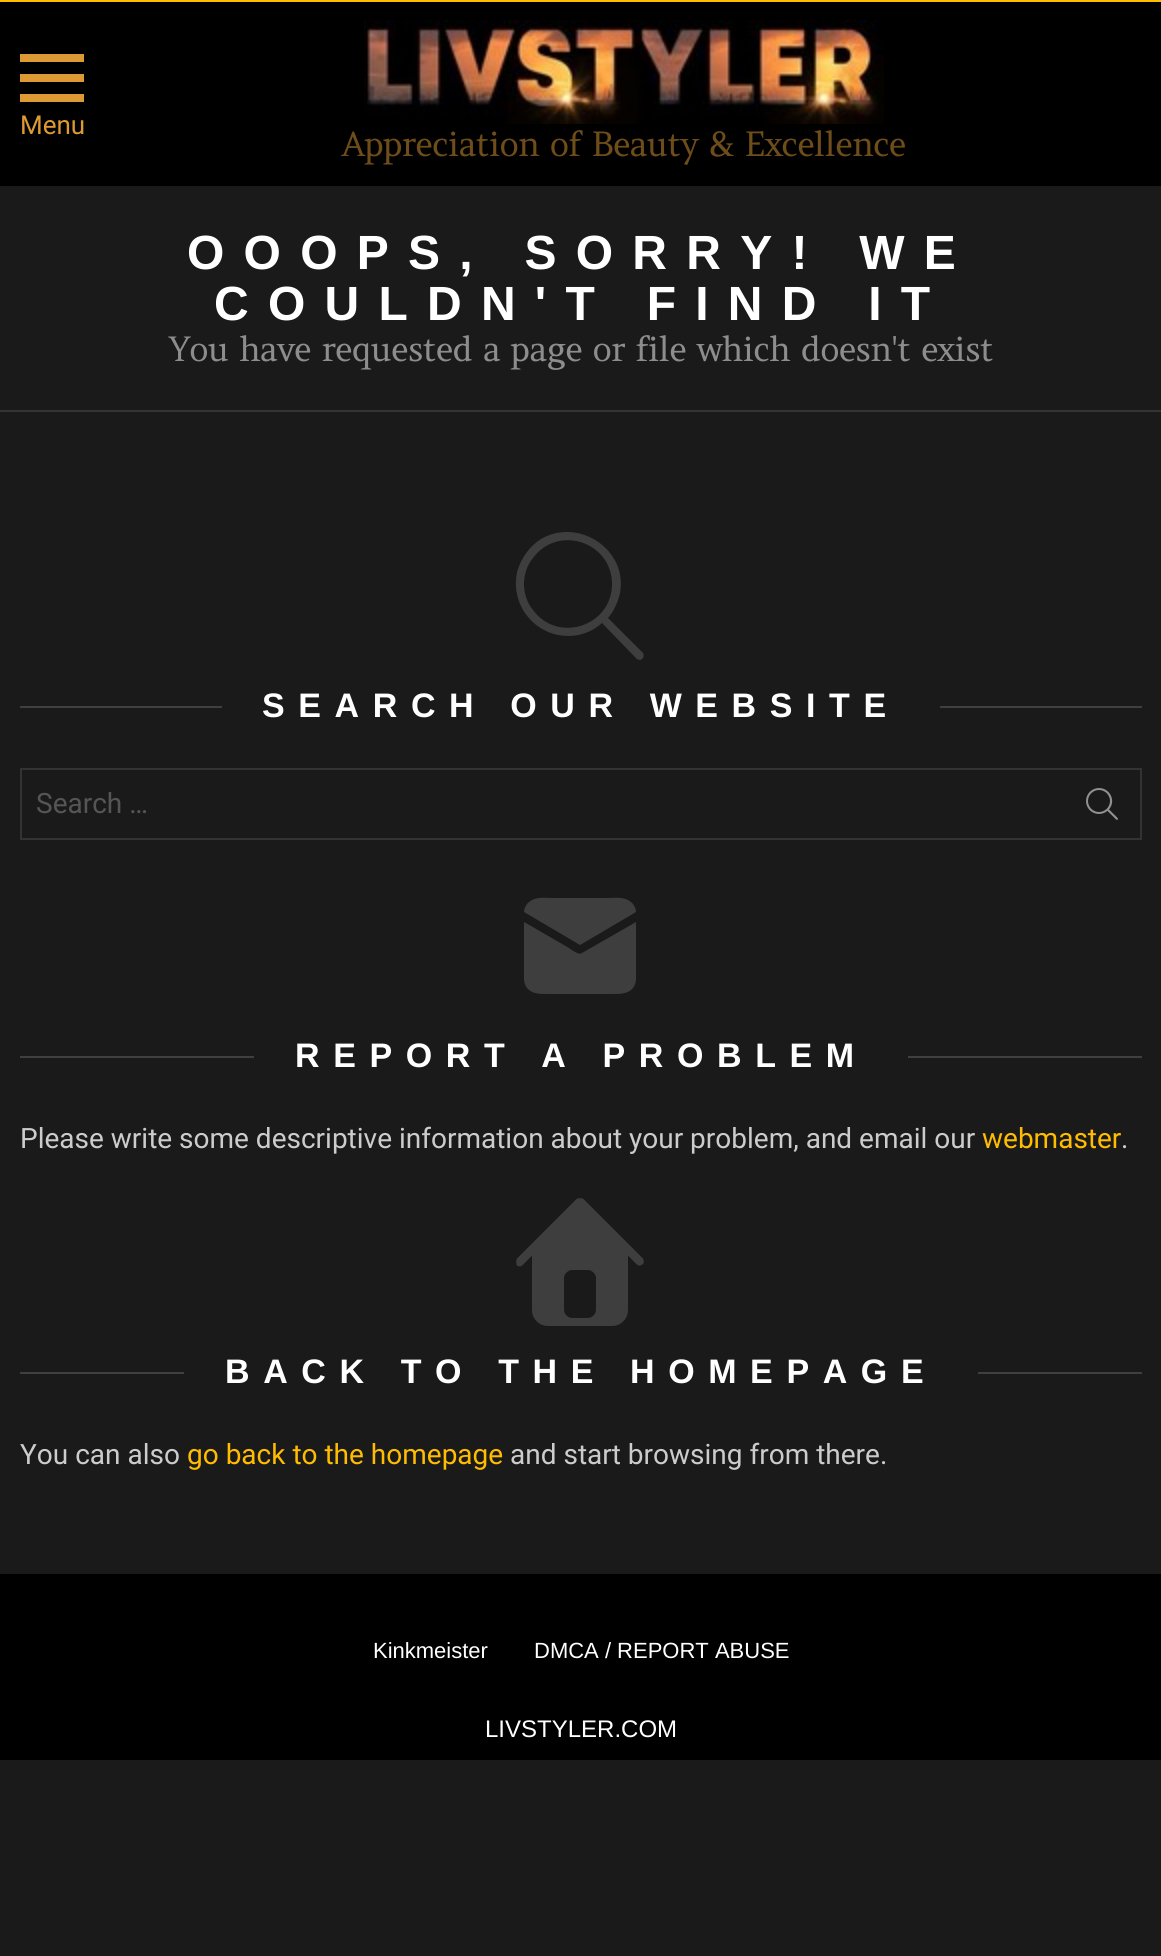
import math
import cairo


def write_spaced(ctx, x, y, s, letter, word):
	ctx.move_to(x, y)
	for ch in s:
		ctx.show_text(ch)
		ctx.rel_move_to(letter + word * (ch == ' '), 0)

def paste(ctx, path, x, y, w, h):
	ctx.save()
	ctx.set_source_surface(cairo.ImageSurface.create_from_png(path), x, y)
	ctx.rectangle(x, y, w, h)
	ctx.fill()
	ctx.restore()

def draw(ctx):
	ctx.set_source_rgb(0.102, 0.102, 0.102)
	ctx.paint()
	ctx.set_source_rgb(0, 0, 0)
	ctx.rectangle(0, 2, 1161, 1758)
	ctx.fill()
	ctx.set_source_rgb(1, 0.737, 0.004)
	ctx.rectangle(0, 0, 1161, 2)
	ctx.fill()
	ctx.set_source_rgb(0.867, 0.6, 0.2)
	ctx.new_path()
	ctx.move_to(20, 54)
	ctx.line_to(84, 54)
	ctx.line_to(84, 62)
	ctx.line_to(20, 62)
	ctx.close_path()
	ctx.move_to(20, 74)
	ctx.line_to(84, 74)
	ctx.line_to(84, 82)
	ctx.line_to(20, 82)
	ctx.close_path()
	ctx.move_to(20, 94)
	ctx.line_to(84, 94)
	ctx.line_to(84, 102)
	ctx.line_to(20, 102)
	ctx.close_path()
	ctx.fill()
	ctx.select_font_face('Roboto')
	ctx.set_font_size(26)
	ctx.move_to(20, 134)
	ctx.show_text('Menu')
	paste(ctx, 'media/1.png', 364, 20, 520, 104)
	ctx.select_font_face('Amethysta')
	ctx.set_font_size(34)
	ctx.set_source_rgb(0.435, 0.302, 0.102)
	write_spaced(ctx, 341, 156, 'Appreciation of Beauty & Excellence', -0.85, 0)
	ctx.set_source_rgb(0.102, 0.102, 0.102)
	ctx.rectangle(0, 186, 1161, 224)
	ctx.fill()
	ctx.set_source_rgb(0.2, 0.2, 0.2)
	ctx.rectangle(0, 410, 1161, 2)
	ctx.fill()
	ctx.select_font_face('Liberation Sans', cairo.FONT_SLANT_NORMAL, cairo.FONT_WEIGHT_BOLD)
	ctx.set_font_size(48)
	ctx.set_source_rgb(1, 1, 1)
	write_spaced(ctx, 187, 269, 'OOOPS, SORRY! WE', 19.25, 0)
	write_spaced(ctx, 214, 320, 'COULDN\'T FIND IT', 19.25, 0)
	ctx.select_font_face('Amethysta')
	ctx.set_font_size(34)
	ctx.set_source_rgb(0.553, 0.553, 0.553)
	write_spaced(ctx, 169, 361, 'You have requested a page or file which doesn\'t exist', -0.85, 0)
	ctx.set_source_rgb(0.102, 0.102, 0.102)
	ctx.rectangle(0, 412, 1161, 1162)
	ctx.fill()
	ctx.set_source_rgb(0.243, 0.243, 0.243)
	ctx.new_path()
	ctx.move_to(643, 653)
	ctx.line_to(608, 618)
	ctx.curve_to(614, 611, 618, 602, 620, 593)
	ctx.curve_to(628, 550, 579, 517, 541, 539)
	ctx.curve_to(530, 546, 522, 557, 518, 569)
	ctx.curve_to(513, 585, 517, 604, 528, 617)
	ctx.curve_to(546, 639, 580, 643, 602, 623)
	ctx.line_to(631, 653)
	ctx.curve_to(633, 654, 636, 660, 640, 660)
	ctx.curve_to(644, 659, 644, 655, 643, 653)
	ctx.close_path()
	ctx.move_to(524, 584)
	ctx.curve_to(524, 575, 527, 565, 533, 558)
	ctx.curve_to(558, 524, 612, 542, 612, 584)
	ctx.curve_to(612, 626, 558, 644, 533, 610)
	ctx.curve_to(527, 603, 524, 593, 524, 584)
	ctx.close_path()
	ctx.fill()
	ctx.set_source_rgb(0.251, 0.251, 0.251)
	ctx.rectangle(20, 706, 202, 2)
	ctx.fill()
	ctx.select_font_face('Liberation Sans', cairo.FONT_SLANT_NORMAL, cairo.FONT_WEIGHT_BOLD)
	ctx.set_source_rgb(1, 1, 1)
	write_spaced(ctx, 262, 717, 'SEARCH OUR WEBSITE', 13.6, 0)
	ctx.set_source_rgb(0.251, 0.251, 0.251)
	ctx.rectangle(940, 706, 202, 2)
	ctx.fill()
	ctx.rectangle(21, 769, 1120, 70)
	ctx.set_source_rgb(0.2, 0.2, 0.2)
	ctx.stroke()
	ctx.select_font_face('Roboto')
	ctx.set_font_size(28)
	ctx.set_source_rgb(0.333, 0.333, 0.333)
	ctx.move_to(36, 813)
	ctx.show_text('Search …')
	paste(ctx, 'media/2.png', 1086, 788, 32, 32)
	ctx.set_source_rgb(0.243, 0.243, 0.243)
	ctx.new_path()
	ctx.move_to(580, 945)
	ctx.line_to(636, 912)
	ctx.curve_to(636, 909, 635, 907, 633, 904)
	ctx.curve_to(626, 896, 616, 898, 607, 898)
	ctx.line_to(553, 898)
	ctx.curve_to(544, 898, 534, 896, 527, 904)
	ctx.curve_to(525, 907, 524, 909, 524, 912)
	ctx.close_path()
	ctx.move_to(582, 953)
	ctx.curve_to(579, 956, 569, 948, 569, 948)
	ctx.line_to(524, 922)
	ctx.line_to(524, 980)
	ctx.curve_to(526, 996, 542, 994, 553, 994)
	ctx.line_to(607, 994)
	ctx.curve_to(618, 994, 634, 996, 636, 980)
	ctx.line_to(636, 922)
	ctx.close_path()
	ctx.fill()
	ctx.set_source_rgb(0.251, 0.251, 0.251)
	ctx.rectangle(20, 1056, 234, 2)
	ctx.fill()
	ctx.select_font_face('Liberation Sans', cairo.FONT_SLANT_NORMAL, cairo.FONT_WEIGHT_BOLD)
	ctx.set_font_size(34)
	ctx.set_source_rgb(1, 1, 1)
	write_spaced(ctx, 295, 1067, 'REPORT A PROBLEM', 13.6, 0)
	ctx.set_source_rgb(0.251, 0.251, 0.251)
	ctx.rectangle(908, 1056, 234, 2)
	ctx.fill()
	ctx.select_font_face('Roboto')
	ctx.set_font_size(28)
	ctx.set_source_rgb(0.8, 0.8, 0.8)
	ctx.move_to(20, 1148)
	ctx.show_text('Please write some descriptive information about your problem, and email our')
	ctx.set_source_rgb(1, 0.737, 0.004)
	ctx.move_to(982, 1148)
	ctx.show_text('webmaster')
	ctx.set_source_rgb(0.8, 0.8, 0.8)
	ctx.move_to(1121, 1148)
	ctx.show_text('.')
	paste(ctx, 'media/3.png', 516, 1198, 128, 128)
	ctx.set_source_rgb(0.251, 0.251, 0.251)
	ctx.rectangle(20, 1372, 164, 2)
	ctx.fill()
	ctx.select_font_face('Liberation Sans', cairo.FONT_SLANT_NORMAL, cairo.FONT_WEIGHT_BOLD)
	ctx.set_font_size(34)
	ctx.set_source_rgb(1, 1, 1)
	write_spaced(ctx, 225, 1383, 'BACK TO THE HOMEPAGE', 13.6, 0)
	ctx.set_source_rgb(0.251, 0.251, 0.251)
	ctx.rectangle(978, 1372, 164, 2)
	ctx.fill()
	ctx.select_font_face('Roboto')
	ctx.set_font_size(28)
	ctx.set_source_rgb(0.8, 0.8, 0.8)
	ctx.move_to(20, 1464)
	ctx.show_text('You can also')
	ctx.set_source_rgb(1, 0.737, 0.004)
	ctx.move_to(187, 1464)
	ctx.show_text('go back to the homepage')
	ctx.set_source_rgb(0.8, 0.8, 0.8)
	ctx.move_to(510, 1464)
	ctx.show_text('and start browsing from there.')
	ctx.select_font_face('Liberation Sans')
	ctx.set_font_size(22)
	ctx.set_source_rgb(1, 1, 1)
	ctx.move_to(373, 1658)
	ctx.show_text('Kinkmeister')
	ctx.move_to(534, 1658)
	ctx.show_text('DMCA / REPORT ABUSE')
	ctx.set_font_size(24)
	ctx.move_to(485, 1737)
	ctx.show_text('LIVSTYLER.COM')


surface = cairo.ImageSurface(cairo.FORMAT_RGB24, 1161, 1956)
ctx = cairo.Context(surface)
options = cairo.FontOptions()
options.set_hint_metrics(cairo.HINT_METRICS_OFF)
options.set_hint_style(cairo.HINT_STYLE_NONE)
ctx.set_font_options(options)
ctx.set_miter_limit(4)
draw(ctx)
surface.write_to_png('image.png')
